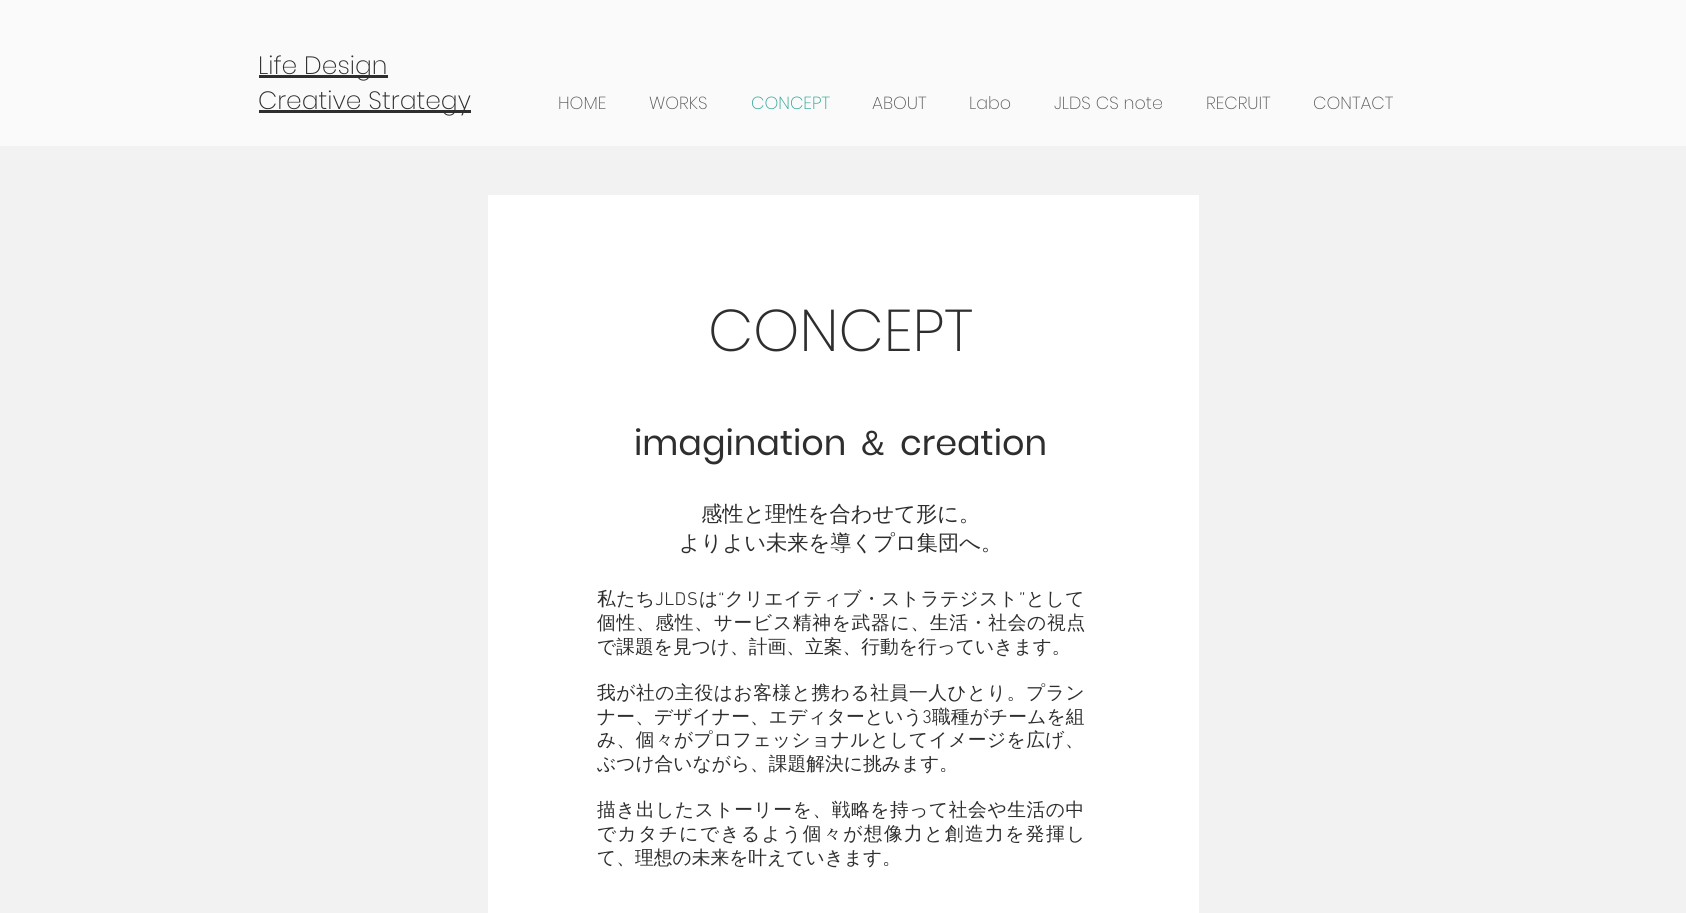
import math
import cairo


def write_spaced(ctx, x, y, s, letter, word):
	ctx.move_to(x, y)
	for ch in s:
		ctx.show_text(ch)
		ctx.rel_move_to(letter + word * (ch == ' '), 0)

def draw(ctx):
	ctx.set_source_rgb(0.98, 0.98, 0.98)
	ctx.paint()
	ctx.set_source_rgb(0.18, 0.18, 0.18)
	ctx.rectangle(259, 75, 129, 3)
	ctx.fill()
	ctx.select_font_face('Poppins ExtraLight')
	ctx.set_font_size(25)
	ctx.move_to(258, 74)
	ctx.show_text('Life Design')
	ctx.rectangle(259, 110, 212, 3)
	ctx.fill()
	ctx.move_to(258, 109)
	ctx.show_text('Creative Strategy')
	ctx.set_font_size(17.5)
	ctx.set_source_rgb(0.357, 0.357, 0.357)
	ctx.move_to(558, 109)
	ctx.show_text('HOME')
	ctx.move_to(649, 109)
	ctx.show_text('WORKS')
	ctx.set_source_rgb(0.188, 0.651, 0.588)
	ctx.move_to(751, 109)
	ctx.show_text('CONCEPT')
	ctx.set_source_rgb(0.357, 0.357, 0.357)
	for x, y, s in [
		(872, 109, 'ABOUT'),
		(969, 109, 'Labo'),
		(1054, 109, 'JLDS CS note'),
		(1206, 109, 'RECRUIT'),
		(1313, 109, 'CONTACT'),
	]:
		ctx.move_to(x, y)
		ctx.show_text(s)
	ctx.set_source_rgb(0.949, 0.949, 0.949)
	ctx.rectangle(0, 146, 1686, 767)
	ctx.fill()
	ctx.set_source_rgb(1, 1, 1)
	ctx.rectangle(488, 195, 711, 718)
	ctx.fill()
	ctx.set_font_size(58.75)
	ctx.set_source_rgb(0.18, 0.18, 0.18)
	ctx.move_to(708, 351)
	ctx.show_text('CONCEPT')
	ctx.select_font_face('Poppins')
	ctx.set_font_size(35)
	ctx.move_to(634, 455)
	ctx.show_text('imagination')
	ctx.select_font_face('WenQuanYi Zen Hei Medium')
	ctx.move_to(855, 455)
	ctx.show_text('＆')
	ctx.select_font_face('Poppins')
	ctx.move_to(900, 455)
	ctx.show_text('creation')
	ctx.select_font_face('WenQuanYi Zen Hei Medium')
	ctx.set_font_size(21.25)
	ctx.move_to(701, 521)
	ctx.show_text('感性と理性を合わせて形に。')
	ctx.move_to(679, 550)
	ctx.show_text('よりよい未来を導くプロ集団へ。')
	ctx.set_font_size(18.75)
	write_spaced(ctx, 597, 605, '私たち', 0.4, 0)
	ctx.select_font_face('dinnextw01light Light')
	write_spaced(ctx, 655, 605, 'JLDS', 0.4, 0)
	ctx.select_font_face('WenQuanYi Zen Hei Medium')
	write_spaced(ctx, 699, 605, 'は', 0.4, 0)
	ctx.select_font_face('dinnextw01light Light')
	write_spaced(ctx, 718, 605, '“', 0.4, 0)
	ctx.select_font_face('WenQuanYi Zen Hei Medium')
	write_spaced(ctx, 725, 605, 'クリエイティブ・ストラテジスト', 0.4, 0)
	ctx.select_font_face('dinnextw01light Light')
	write_spaced(ctx, 1019, 605, '”', 0.4, 0)
	ctx.select_font_face('WenQuanYi Zen Hei Medium')
	write_spaced(ctx, 1026, 605, 'として', 0.4, 0)
	write_spaced(ctx, 597, 629, '個性、感性、サービス精神を武器に、生活・社会の視点', 0.7, 0)
	ctx.move_to(597, 653)
	ctx.show_text('で課題を見つけ、計画、立案、行動を行っていきます。')
	write_spaced(ctx, 597, 699, '我が社の主役はお客様と携わる社員一人ひとり。プラン', 0.55, 0)
	write_spaced(ctx, 597, 723, 'ナー、デザイナー、エディターという', 0.1, 0)
	ctx.select_font_face('dinnextw01light Light')
	write_spaced(ctx, 922, 723, '3', 0.1, 0)
	ctx.select_font_face('WenQuanYi Zen Hei Medium')
	write_spaced(ctx, 932, 723, '職種がチームを組', 0.1, 0)
	write_spaced(ctx, 597, 746, 'み、個々がプロフェッショナルとしてイメージを広げ、', 0.4, 0)
	ctx.move_to(597, 770)
	ctx.show_text('ぶつけ合いながら、課題解決に挑みます。')
	write_spaced(ctx, 597, 816, '描き出したストーリーを、戦略を持って社会や生活の中', 0.55, 0)
	write_spaced(ctx, 597, 840, 'でカタチにできるよう個々が想像力と創造力を発揮し', 1.4, 0)
	ctx.move_to(597, 864)
	ctx.show_text('て、理想の未来を叶えていきます。')


surface = cairo.ImageSurface(cairo.FORMAT_RGB24, 1686, 913)
ctx = cairo.Context(surface)
options = cairo.FontOptions()
options.set_hint_metrics(cairo.HINT_METRICS_OFF)
options.set_hint_style(cairo.HINT_STYLE_NONE)
ctx.set_font_options(options)
ctx.set_miter_limit(4)
draw(ctx)
surface.write_to_png('image.png')
